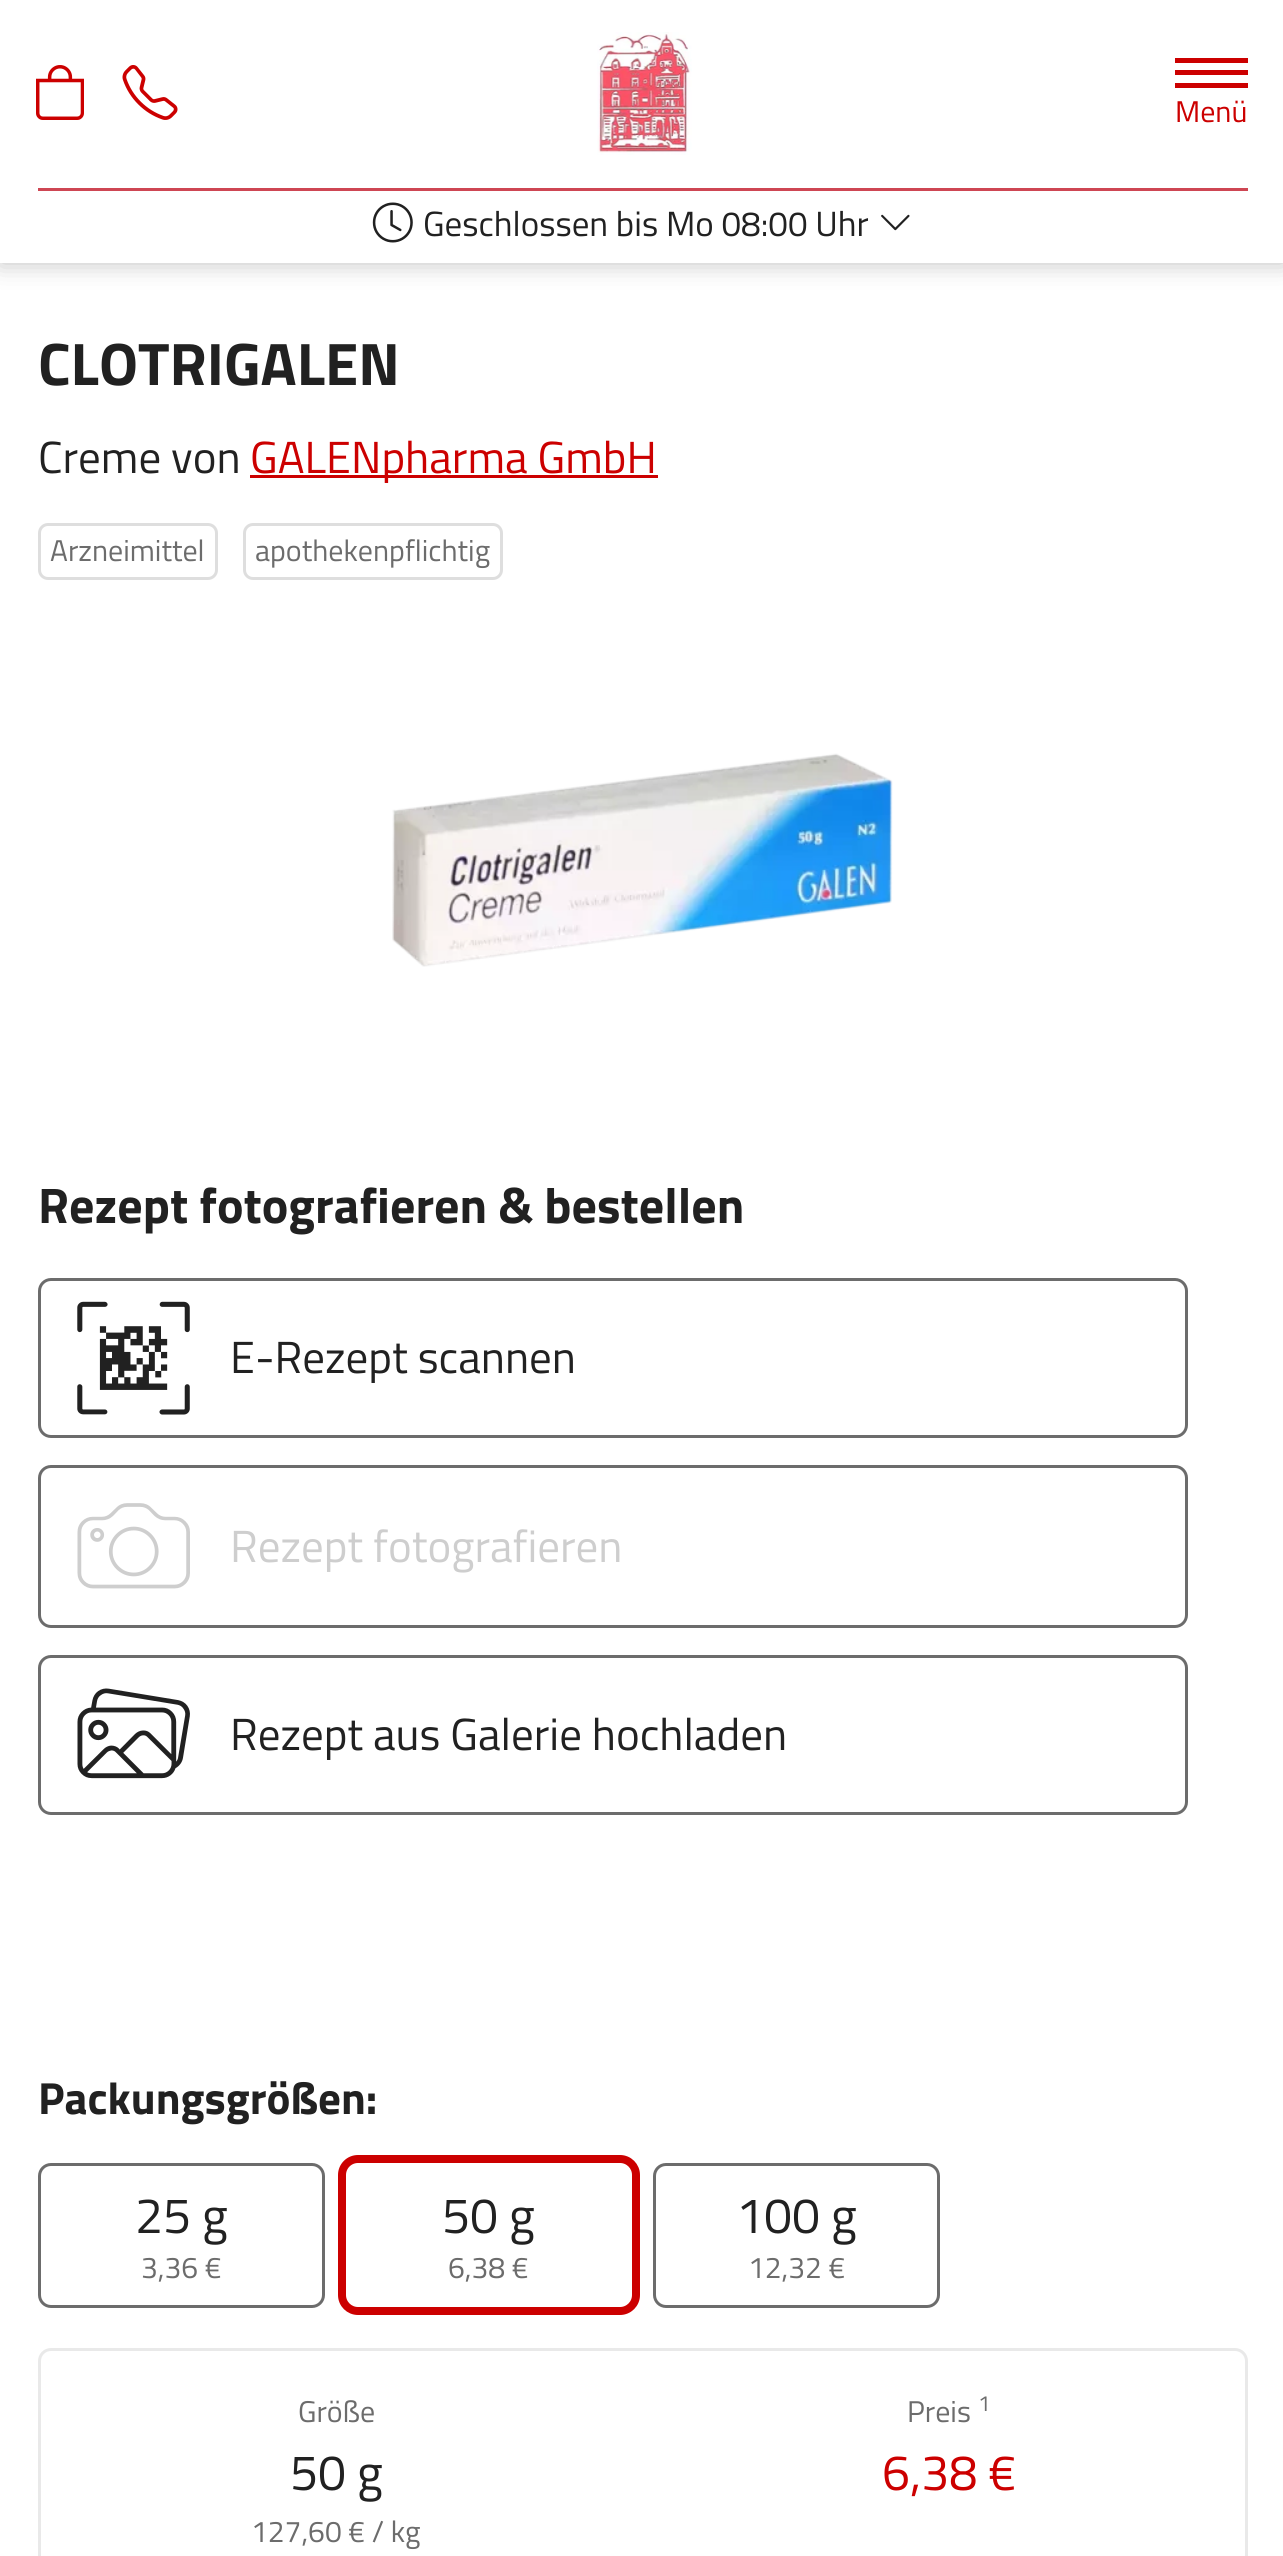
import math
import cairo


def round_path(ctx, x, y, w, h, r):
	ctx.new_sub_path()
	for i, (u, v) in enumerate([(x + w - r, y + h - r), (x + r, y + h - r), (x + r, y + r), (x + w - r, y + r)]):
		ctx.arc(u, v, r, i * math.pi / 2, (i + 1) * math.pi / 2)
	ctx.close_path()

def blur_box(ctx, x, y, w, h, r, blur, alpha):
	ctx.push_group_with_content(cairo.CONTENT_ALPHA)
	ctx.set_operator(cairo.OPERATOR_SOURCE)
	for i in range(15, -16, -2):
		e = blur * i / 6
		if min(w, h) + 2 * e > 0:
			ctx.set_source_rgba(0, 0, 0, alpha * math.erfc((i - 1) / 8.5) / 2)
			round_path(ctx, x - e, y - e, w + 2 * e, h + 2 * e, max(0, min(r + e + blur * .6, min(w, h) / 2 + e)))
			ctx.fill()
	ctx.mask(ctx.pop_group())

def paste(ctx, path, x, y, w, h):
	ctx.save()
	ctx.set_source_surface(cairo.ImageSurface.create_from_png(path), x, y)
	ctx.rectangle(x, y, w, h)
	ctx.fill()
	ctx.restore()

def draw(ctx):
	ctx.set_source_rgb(1, 1, 1)
	ctx.paint()
	ctx.set_source_rgb(0, 0, 0)
	blur_box(ctx, 0, 0, 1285, 263, 0, 12.5, 0.25)
	ctx.set_source_rgb(1, 1, 1)
	ctx.rectangle(0, 0, 1283, 263)
	ctx.fill()
	paste(ctx, 'media/1.png', 597, 32, 95, 123)
	ctx.set_source_rgb(0.808, 0.275, 0.325)
	ctx.rectangle(38, 188, 1210, 3)
	ctx.fill()
	paste(ctx, 'media/2.png', 36, 65, 48, 55)
	paste(ctx, 'media/3.png', 122, 65, 56, 55)
	ctx.set_source_rgb(0.8, 0, 0)
	ctx.rectangle(1175, 70, 73, 5)
	ctx.rectangle(1175, 58, 73, 5)
	ctx.rectangle(1175, 83, 73, 5)
	ctx.fill()
	ctx.select_font_face('Titillium Web')
	ctx.set_font_size(30)
	ctx.move_to(1175, 122)
	ctx.show_text('Menü')
	paste(ctx, 'media/4.png', 372, 202, 41, 41)
	ctx.set_font_size(35)
	ctx.set_source_rgb(0.129, 0.129, 0.129)
	ctx.move_to(423, 236)
	ctx.show_text('Geschlossen bis Mo 08:00 Uhr')
	paste(ctx, 'media/5.png', 881, 214, 29, 17)
	ctx.select_font_face('Titillium Web', cairo.FONT_SLANT_NORMAL, cairo.FONT_WEIGHT_BOLD)
	ctx.set_font_size(60)
	ctx.move_to(38, 385)
	ctx.show_text('CLOTRIGALEN')
	ctx.select_font_face('Titillium Web')
	ctx.set_font_size(45)
	ctx.move_to(38, 473)
	ctx.show_text('Creme von')
	ctx.set_source_rgb(0.8, 0, 0)
	ctx.rectangle(250, 475, 408, 3)
	ctx.fill()
	ctx.move_to(250, 473)
	ctx.show_text('GALENpharma GmbH')
	round_path(ctx, 39.5, 524.5, 177, 54, 8.5)
	ctx.set_source_rgb(0.871, 0.871, 0.871)
	ctx.set_line_width(3)
	ctx.stroke()
	ctx.set_font_size(30)
	ctx.set_source_rgb(0.424, 0.424, 0.424)
	ctx.move_to(50, 561)
	ctx.show_text('Arzneimittel')
	round_path(ctx, 244.5, 524.5, 257, 54, 8.5)
	ctx.set_source_rgb(0.871, 0.871, 0.871)
	ctx.stroke()
	ctx.set_source_rgb(0.424, 0.424, 0.424)
	ctx.move_to(255, 561)
	ctx.show_text('apothekenpflichtig')
	paste(ctx, 'media/6.png', 392, 753, 501, 214)
	ctx.select_font_face('Titillium Web', cairo.FONT_SLANT_NORMAL, cairo.FONT_WEIGHT_BOLD)
	ctx.set_font_size(50)
	ctx.set_source_rgb(0.129, 0.129, 0.129)
	ctx.move_to(38, 1223)
	ctx.show_text('Rezept fotografieren & bestellen')
	round_path(ctx, 39.5, 1279.5, 1147, 157, 11.5)
	ctx.set_source_rgb(0.424, 0.424, 0.424)
	ctx.stroke()
	paste(ctx, 'media/7.png', 77, 1301, 113, 114)
	ctx.select_font_face('Titillium Web')
	ctx.set_font_size(45)
	ctx.set_source_rgb(0.129, 0.129, 0.129)
	ctx.move_to(230, 1373)
	ctx.show_text('E-Rezept scannen')
	round_path(ctx, 39.5, 1466.5, 1147, 160, 11.5)
	ctx.set_source_rgb(0.424, 0.424, 0.424)
	ctx.stroke()
	paste(ctx, 'media/8.png', 77, 1503, 113, 86)
	ctx.set_source_rgb(0.808, 0.808, 0.808)
	ctx.move_to(230, 1562)
	ctx.show_text('Rezept fotografieren')
	round_path(ctx, 39.5, 1656.5, 1147, 157, 11.5)
	ctx.set_source_rgb(0.424, 0.424, 0.424)
	ctx.stroke()
	paste(ctx, 'media/9.png', 77, 1688, 113, 91)
	ctx.set_source_rgb(0.129, 0.129, 0.129)
	ctx.move_to(230, 1750)
	ctx.show_text('Rezept aus Galerie hochladen')
	ctx.select_font_face('Titillium Web', cairo.FONT_SLANT_NORMAL, cairo.FONT_WEIGHT_BOLD)
	ctx.move_to(38, 2114)
	ctx.show_text('Packungsgrößen:')
	round_path(ctx, 39.5, 2164.5, 284, 142, 11.5)
	ctx.set_source_rgb(0.424, 0.424, 0.424)
	ctx.stroke()
	ctx.select_font_face('Titillium Web')
	ctx.set_font_size(50)
	ctx.set_source_rgb(0.129, 0.129, 0.129)
	ctx.move_to(135, 2233)
	ctx.show_text('25 g')
	ctx.set_font_size(30)
	ctx.set_source_rgb(0.424, 0.424, 0.424)
	ctx.move_to(141, 2278)
	ctx.show_text('3,36 €')
	round_path(ctx, 342, 2159, 294, 152, 16)
	ctx.set_source_rgb(0.8, 0, 0)
	ctx.set_line_width(8)
	ctx.stroke()
	ctx.set_font_size(50)
	ctx.set_source_rgb(0.129, 0.129, 0.129)
	ctx.move_to(442, 2233)
	ctx.show_text('50 g')
	ctx.set_font_size(30)
	ctx.set_source_rgb(0.424, 0.424, 0.424)
	ctx.move_to(448, 2278)
	ctx.show_text('6,38 €')
	round_path(ctx, 654.5, 2164.5, 284, 142, 11.5)
	ctx.set_line_width(3)
	ctx.stroke()
	ctx.set_font_size(50)
	ctx.set_source_rgb(0.129, 0.129, 0.129)
	ctx.move_to(736, 2233)
	ctx.show_text('100 g')
	ctx.set_font_size(30)
	ctx.set_source_rgb(0.424, 0.424, 0.424)
	ctx.move_to(748, 2278)
	ctx.show_text('12,32 €')
	round_path(ctx, 39.5, 2349.5, 1207, 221, 11.5)
	ctx.set_source_rgb(0.914, 0.914, 0.914)
	ctx.stroke()
	ctx.set_source_rgb(0.424, 0.424, 0.424)
	ctx.move_to(298, 2422)
	ctx.show_text('Größe')
	ctx.set_font_size(50)
	ctx.set_source_rgb(0.129, 0.129, 0.129)
	ctx.move_to(290, 2490)
	ctx.show_text('50 g')
	ctx.set_font_size(30)
	ctx.set_source_rgb(0.424, 0.424, 0.424)
	ctx.move_to(251, 2542)
	ctx.show_text('127,60 € / kg')
	ctx.move_to(907, 2422)
	ctx.show_text('Preis')
	ctx.set_font_size(22)
	ctx.move_to(978, 2411)
	ctx.show_text('1')
	ctx.set_font_size(50)
	ctx.set_source_rgb(0.8, 0, 0)
	ctx.move_to(882, 2490)
	ctx.show_text('6,38 €')


surface = cairo.ImageSurface(cairo.FORMAT_RGB24, 1283, 2556)
ctx = cairo.Context(surface)
options = cairo.FontOptions()
options.set_hint_metrics(cairo.HINT_METRICS_OFF)
options.set_hint_style(cairo.HINT_STYLE_NONE)
ctx.set_font_options(options)
ctx.set_miter_limit(4)
draw(ctx)
surface.write_to_png('image.png')
